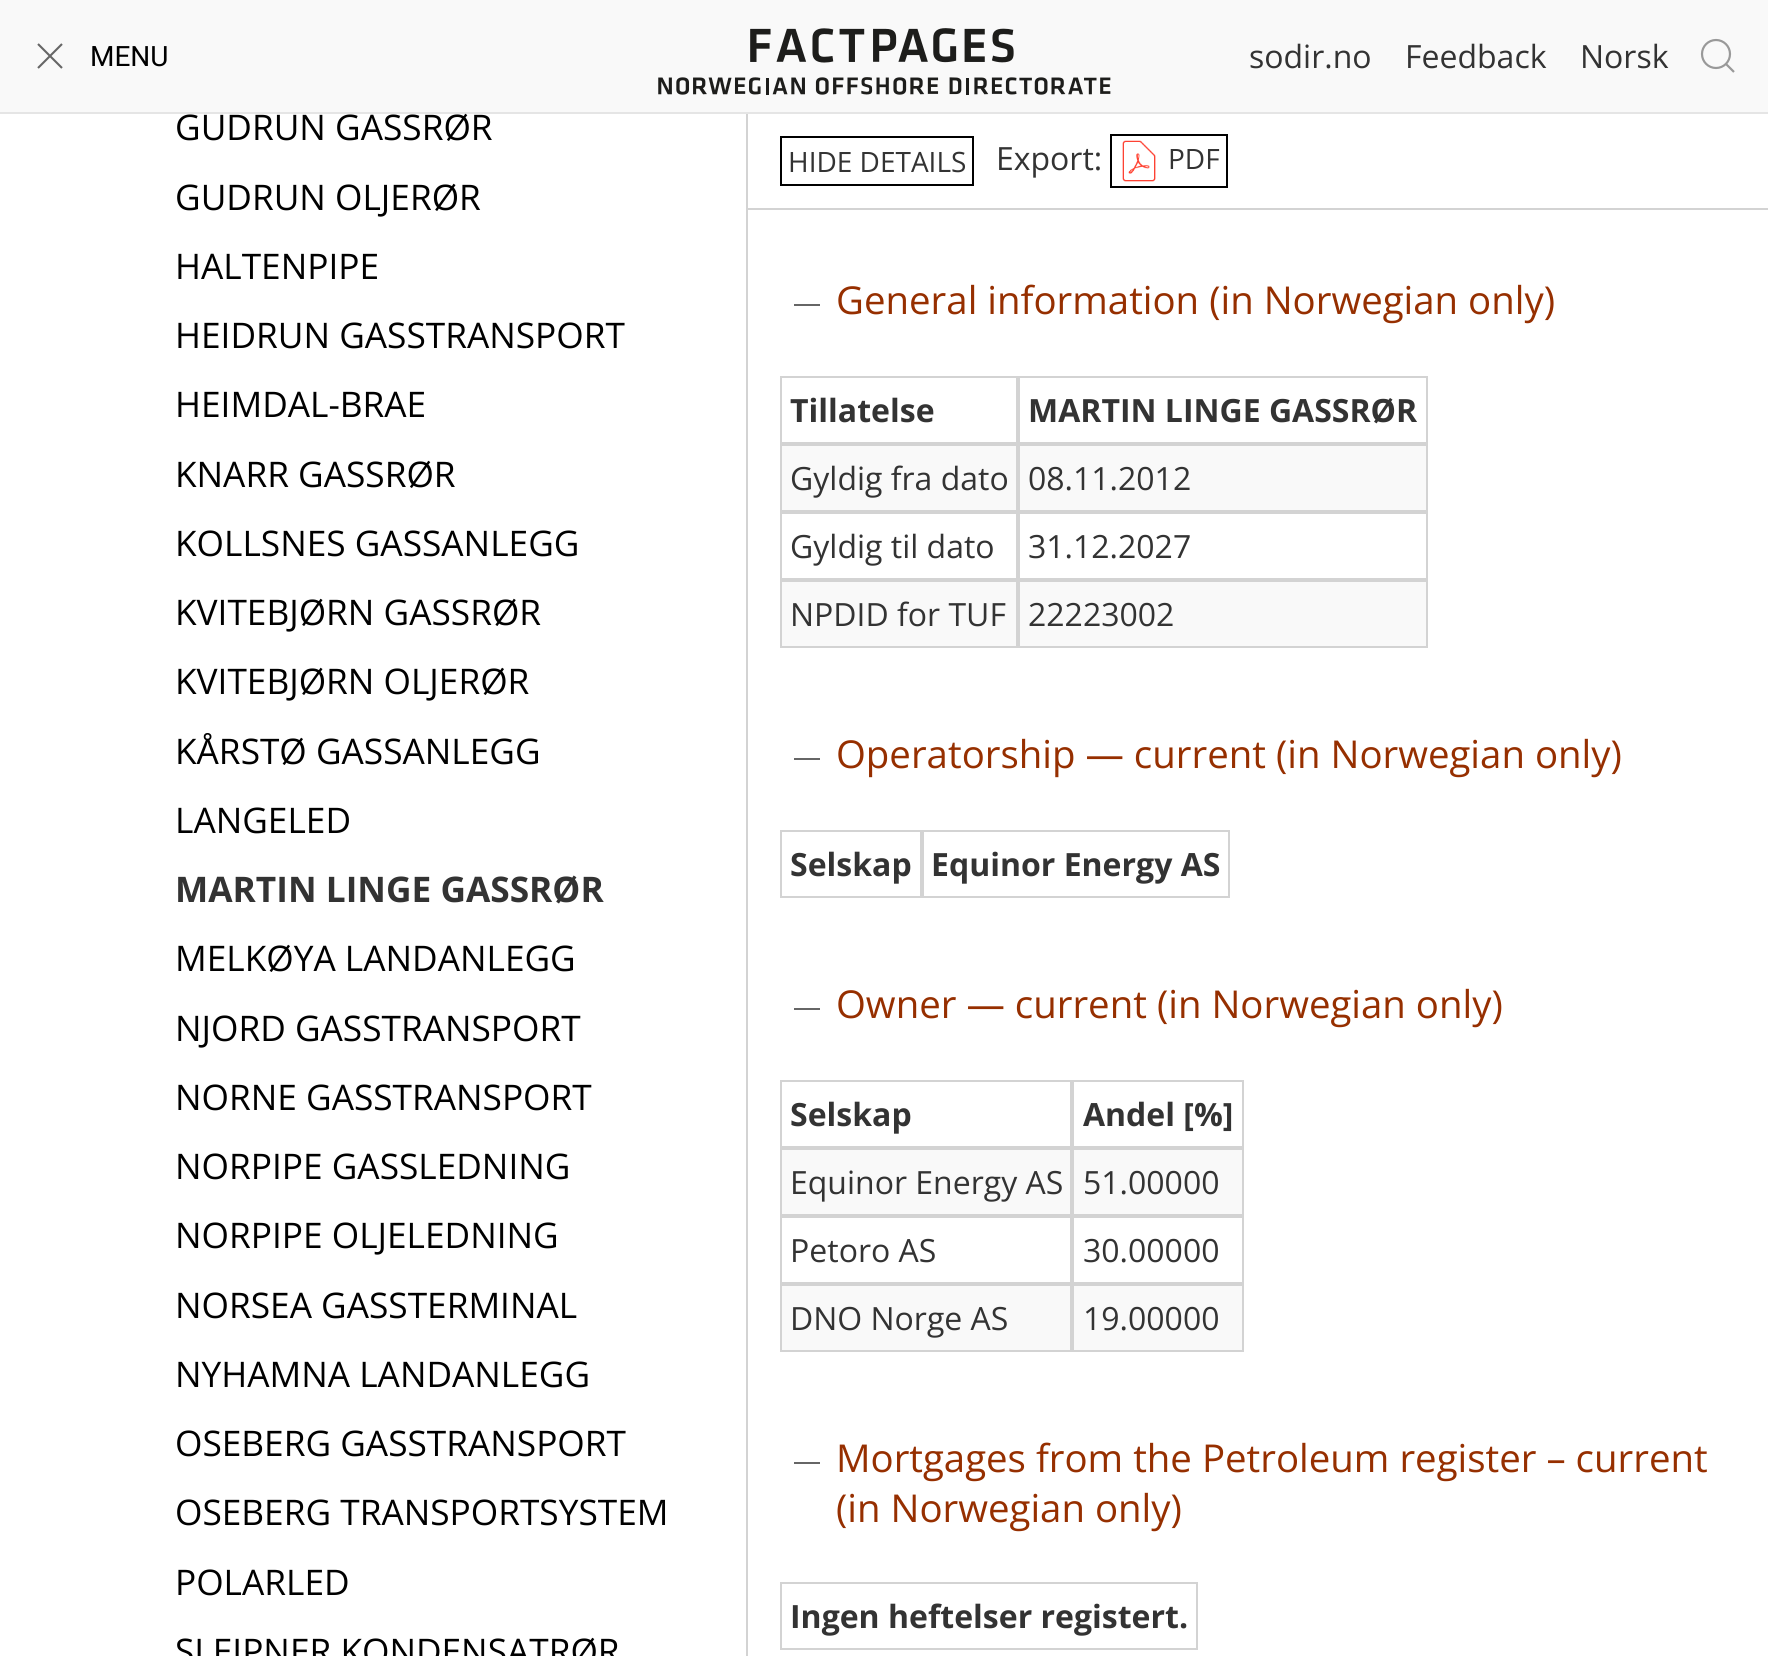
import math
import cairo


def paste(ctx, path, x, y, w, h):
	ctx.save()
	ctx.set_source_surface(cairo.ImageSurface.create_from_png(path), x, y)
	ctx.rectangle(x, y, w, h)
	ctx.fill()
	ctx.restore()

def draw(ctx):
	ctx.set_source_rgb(1, 1, 1)
	ctx.paint()
	ctx.set_source_rgb(0.898, 0.898, 0.898)
	ctx.rectangle(0, 112, 1768, 2)
	ctx.fill()
	ctx.set_source_rgb(0.973, 0.973, 0.973)
	ctx.rectangle(0, 0, 1768, 112)
	ctx.fill()
	ctx.new_path()
	ctx.move_to(62, 68)
	ctx.line_to(38, 44)
	ctx.move_to(62, 44)
	ctx.line_to(38, 68)
	ctx.set_source_rgb(0.4, 0.4, 0.4)
	ctx.set_line_width(2.1)
	ctx.stroke()
	ctx.select_font_face('Roboto')
	ctx.set_font_size(28)
	ctx.set_source_rgb(0, 0, 0)
	ctx.move_to(90, 66)
	ctx.show_text('MENU')
	paste(ctx, 'media/1.png', 658, 28, 453, 67)
	ctx.select_font_face('Open Sans')
	ctx.set_font_size(32)
	ctx.set_source_rgb(0.2, 0.2, 0.2)
	for x, y, s in [
		(1249, 68, 'sodir.no'),
		(1405, 68, 'Feedback'),
		(1580, 68, 'Norsk'),
	]:
		ctx.move_to(x, y)
		ctx.show_text(s)
	ctx.new_path()
	ctx.arc(1716, 54, 14, 0, 2 * math.pi)
	ctx.set_source_rgb(0.6, 0.6, 0.6)
	ctx.set_line_width(2.2)
	ctx.stroke()
	ctx.new_path()
	ctx.move_to(1726, 64)
	ctx.line_to(1734, 72)
	ctx.close_path()
	ctx.stroke()
	ctx.set_source_rgb(0.827, 0.827, 0.827)
	ctx.rectangle(746, 114, 2, 1542)
	ctx.fill()
	ctx.set_font_size(35.25)
	ctx.set_source_rgb(0, 0, 0)
	for x, y, s in [
		(175, 140, 'GUDRUN GASSRØR'),
		(175, 210, 'GUDRUN OLJERØR'),
		(175, 279, 'HALTENPIPE'),
		(175, 348, 'HEIDRUN GASSTRANSPORT'),
		(175, 417, 'HEIMDAL-BRAE'),
		(175, 487, 'KNARR GASSRØR'),
		(175, 556, 'KOLLSNES GASSANLEGG'),
		(175, 625, 'KVITEBJØRN GASSRØR'),
		(175, 694, 'KVITEBJØRN OLJERØR'),
		(175, 764, 'KÅRSTØ GASSANLEGG'),
		(175, 833, 'LANGELED'),
	]:
		ctx.move_to(x, y)
		ctx.show_text(s)
	ctx.select_font_face('Open Sans', cairo.FONT_SLANT_NORMAL, cairo.FONT_WEIGHT_BOLD)
	ctx.set_source_rgb(0.2, 0.2, 0.2)
	ctx.move_to(175, 902)
	ctx.show_text('MARTIN LINGE GASSRØR')
	ctx.select_font_face('Open Sans')
	ctx.set_source_rgb(0, 0, 0)
	for x, y, s in [
		(175, 971, 'MELKØYA LANDANLEGG'),
		(175, 1041, 'NJORD GASSTRANSPORT'),
		(175, 1110, 'NORNE GASSTRANSPORT'),
		(175, 1179, 'NORPIPE GASSLEDNING'),
		(175, 1248, 'NORPIPE OLJELEDNING'),
		(175, 1318, 'NORSEA GASSTERMINAL'),
		(175, 1387, 'NYHAMNA LANDANLEGG'),
		(175, 1456, 'OSEBERG GASSTRANSPORT'),
		(175, 1525, 'OSEBERG TRANSPORTSYSTEM'),
		(175, 1595, 'POLARLED'),
	]:
		ctx.move_to(x, y)
		ctx.show_text(s)
	ctx.save()
	ctx.rectangle(0, 114, 746, 1542)
	ctx.clip()
	ctx.move_to(175, 1664)
	ctx.show_text('SLEIPNER KONDENSATRØR')
	ctx.restore()
	ctx.set_source_rgb(0.827, 0.827, 0.827)
	ctx.rectangle(748, 208, 1020, 2)
	ctx.fill()
	ctx.rectangle(781, 137, 192, 48)
	ctx.set_source_rgb(0, 0, 0)
	ctx.set_line_width(2)
	ctx.stroke()
	ctx.set_font_size(28)
	ctx.set_source_rgb(0.2, 0.2, 0.2)
	ctx.move_to(788, 172)
	ctx.show_text('HIDE DETAILS')
	ctx.set_font_size(32)
	ctx.move_to(996, 170)
	ctx.show_text('Export:')
	ctx.rectangle(1111, 135, 116, 52)
	ctx.set_source_rgb(0, 0, 0)
	ctx.stroke()
	paste(ctx, 'media/2.png', 1122, 140, 34, 42)
	ctx.set_font_size(28)
	ctx.set_source_rgb(0.2, 0.2, 0.2)
	ctx.move_to(1168, 169)
	ctx.show_text('PDF')
	ctx.set_source_rgb(0.4, 0.4, 0.4)
	ctx.rectangle(794, 304, 26, 2)
	ctx.fill()
	ctx.set_font_size(38.4)
	ctx.set_source_rgb(0.588, 0.184, 0)
	ctx.move_to(836, 314)
	ctx.show_text('General information (in Norwegian only)')
	ctx.rectangle(781, 377, 236, 66)
	ctx.set_source_rgb(0.827, 0.827, 0.827)
	ctx.stroke()
	ctx.select_font_face('Open Sans', cairo.FONT_SLANT_NORMAL, cairo.FONT_WEIGHT_BOLD)
	ctx.set_font_size(32)
	ctx.set_source_rgb(0.2, 0.2, 0.2)
	ctx.move_to(790, 422)
	ctx.show_text('Tillatelse')
	ctx.rectangle(1019, 377, 408, 66)
	ctx.set_source_rgb(0.827, 0.827, 0.827)
	ctx.stroke()
	ctx.set_source_rgb(0.2, 0.2, 0.2)
	ctx.move_to(1028, 422)
	ctx.show_text('MARTIN LINGE GASSRØR')
	ctx.set_source_rgb(0.973, 0.973, 0.973)
	ctx.rectangle(782, 446, 644, 64)
	ctx.fill()
	ctx.rectangle(781, 445, 236, 66)
	ctx.set_source_rgb(0.827, 0.827, 0.827)
	ctx.stroke()
	ctx.select_font_face('Open Sans')
	ctx.set_source_rgb(0.2, 0.2, 0.2)
	ctx.move_to(790, 490)
	ctx.show_text('Gyldig fra dato')
	ctx.rectangle(1019, 445, 408, 66)
	ctx.set_source_rgb(0.827, 0.827, 0.827)
	ctx.stroke()
	ctx.set_source_rgb(0.2, 0.2, 0.2)
	ctx.move_to(1028, 490)
	ctx.show_text('08.11.2012')
	ctx.rectangle(781, 513, 236, 66)
	ctx.set_source_rgb(0.827, 0.827, 0.827)
	ctx.stroke()
	ctx.set_source_rgb(0.2, 0.2, 0.2)
	ctx.move_to(790, 558)
	ctx.show_text('Gyldig til dato')
	ctx.rectangle(1019, 513, 408, 66)
	ctx.set_source_rgb(0.827, 0.827, 0.827)
	ctx.stroke()
	ctx.set_source_rgb(0.2, 0.2, 0.2)
	ctx.move_to(1028, 558)
	ctx.show_text('31.12.2027')
	ctx.set_source_rgb(0.973, 0.973, 0.973)
	ctx.rectangle(782, 582, 644, 64)
	ctx.fill()
	ctx.rectangle(781, 581, 236, 66)
	ctx.set_source_rgb(0.827, 0.827, 0.827)
	ctx.stroke()
	ctx.set_source_rgb(0.2, 0.2, 0.2)
	ctx.move_to(790, 626)
	ctx.show_text('NPDID for TUF')
	ctx.rectangle(1019, 581, 408, 66)
	ctx.set_source_rgb(0.827, 0.827, 0.827)
	ctx.stroke()
	ctx.set_source_rgb(0.2, 0.2, 0.2)
	ctx.move_to(1028, 626)
	ctx.show_text('22223002')
	ctx.set_source_rgb(0.4, 0.4, 0.4)
	ctx.rectangle(794, 758, 26, 2)
	ctx.fill()
	ctx.set_font_size(38.4)
	ctx.set_source_rgb(0.588, 0.184, 0)
	ctx.move_to(836, 768)
	ctx.show_text('Operatorship — current (in Norwegian only)')
	ctx.rectangle(781, 831, 140, 66)
	ctx.set_source_rgb(0.827, 0.827, 0.827)
	ctx.stroke()
	ctx.select_font_face('Open Sans', cairo.FONT_SLANT_NORMAL, cairo.FONT_WEIGHT_BOLD)
	ctx.set_font_size(32)
	ctx.set_source_rgb(0.2, 0.2, 0.2)
	ctx.move_to(790, 876)
	ctx.show_text('Selskap')
	ctx.rectangle(923, 831, 306, 66)
	ctx.set_source_rgb(0.827, 0.827, 0.827)
	ctx.stroke()
	ctx.set_source_rgb(0.2, 0.2, 0.2)
	ctx.move_to(931, 876)
	ctx.show_text('Equinor Energy AS')
	ctx.set_source_rgb(0.4, 0.4, 0.4)
	ctx.rectangle(794, 1008, 26, 2)
	ctx.fill()
	ctx.select_font_face('Open Sans')
	ctx.set_font_size(38.4)
	ctx.set_source_rgb(0.588, 0.184, 0)
	ctx.move_to(836, 1018)
	ctx.show_text('Owner — current (in Norwegian only)')
	ctx.rectangle(781, 1081, 290, 66)
	ctx.set_source_rgb(0.827, 0.827, 0.827)
	ctx.stroke()
	ctx.select_font_face('Open Sans', cairo.FONT_SLANT_NORMAL, cairo.FONT_WEIGHT_BOLD)
	ctx.set_font_size(32)
	ctx.set_source_rgb(0.2, 0.2, 0.2)
	ctx.move_to(790, 1126)
	ctx.show_text('Selskap')
	ctx.rectangle(1073, 1081, 170, 66)
	ctx.set_source_rgb(0.827, 0.827, 0.827)
	ctx.stroke()
	ctx.set_source_rgb(0.2, 0.2, 0.2)
	ctx.move_to(1083, 1126)
	ctx.show_text('Andel [%]')
	ctx.set_source_rgb(0.973, 0.973, 0.973)
	ctx.rectangle(782, 1150, 460, 64)
	ctx.fill()
	ctx.rectangle(781, 1149, 290, 66)
	ctx.set_source_rgb(0.827, 0.827, 0.827)
	ctx.stroke()
	ctx.select_font_face('Open Sans')
	ctx.set_source_rgb(0.2, 0.2, 0.2)
	ctx.move_to(790, 1194)
	ctx.show_text('Equinor Energy AS')
	ctx.rectangle(1073, 1149, 170, 66)
	ctx.set_source_rgb(0.827, 0.827, 0.827)
	ctx.stroke()
	ctx.set_source_rgb(0.2, 0.2, 0.2)
	ctx.move_to(1083, 1194)
	ctx.show_text('51.00000')
	ctx.rectangle(781, 1217, 290, 66)
	ctx.set_source_rgb(0.827, 0.827, 0.827)
	ctx.stroke()
	ctx.set_source_rgb(0.2, 0.2, 0.2)
	ctx.move_to(790, 1262)
	ctx.show_text('Petoro AS')
	ctx.rectangle(1073, 1217, 170, 66)
	ctx.set_source_rgb(0.827, 0.827, 0.827)
	ctx.stroke()
	ctx.set_source_rgb(0.2, 0.2, 0.2)
	ctx.move_to(1083, 1262)
	ctx.show_text('30.00000')
	ctx.set_source_rgb(0.973, 0.973, 0.973)
	ctx.rectangle(782, 1286, 460, 64)
	ctx.fill()
	ctx.rectangle(781, 1285, 290, 66)
	ctx.set_source_rgb(0.827, 0.827, 0.827)
	ctx.stroke()
	ctx.set_source_rgb(0.2, 0.2, 0.2)
	ctx.move_to(790, 1330)
	ctx.show_text('DNO Norge AS')
	ctx.rectangle(1073, 1285, 170, 66)
	ctx.set_source_rgb(0.827, 0.827, 0.827)
	ctx.stroke()
	ctx.set_source_rgb(0.2, 0.2, 0.2)
	ctx.move_to(1083, 1330)
	ctx.show_text('19.00000')
	ctx.set_source_rgb(0.4, 0.4, 0.4)
	ctx.rectangle(794, 1462, 26, 2)
	ctx.fill()
	ctx.set_font_size(38.4)
	ctx.set_source_rgb(0.588, 0.184, 0)
	ctx.move_to(836, 1472)
	ctx.show_text('Mortgages from the Petroleum register – current')
	ctx.move_to(836, 1522)
	ctx.show_text('(in Norwegian only)')
	ctx.rectangle(781, 1583, 416, 66)
	ctx.set_source_rgb(0.827, 0.827, 0.827)
	ctx.stroke()
	ctx.select_font_face('Open Sans', cairo.FONT_SLANT_NORMAL, cairo.FONT_WEIGHT_BOLD)
	ctx.set_font_size(32)
	ctx.set_source_rgb(0.2, 0.2, 0.2)
	ctx.move_to(790, 1628)
	ctx.show_text('Ingen heftelser registert.')


surface = cairo.ImageSurface(cairo.FORMAT_RGB24, 1768, 1672)
ctx = cairo.Context(surface)
options = cairo.FontOptions()
options.set_hint_metrics(cairo.HINT_METRICS_OFF)
options.set_hint_style(cairo.HINT_STYLE_NONE)
ctx.set_font_options(options)
ctx.set_miter_limit(4)
draw(ctx)
surface.write_to_png('image.png')
